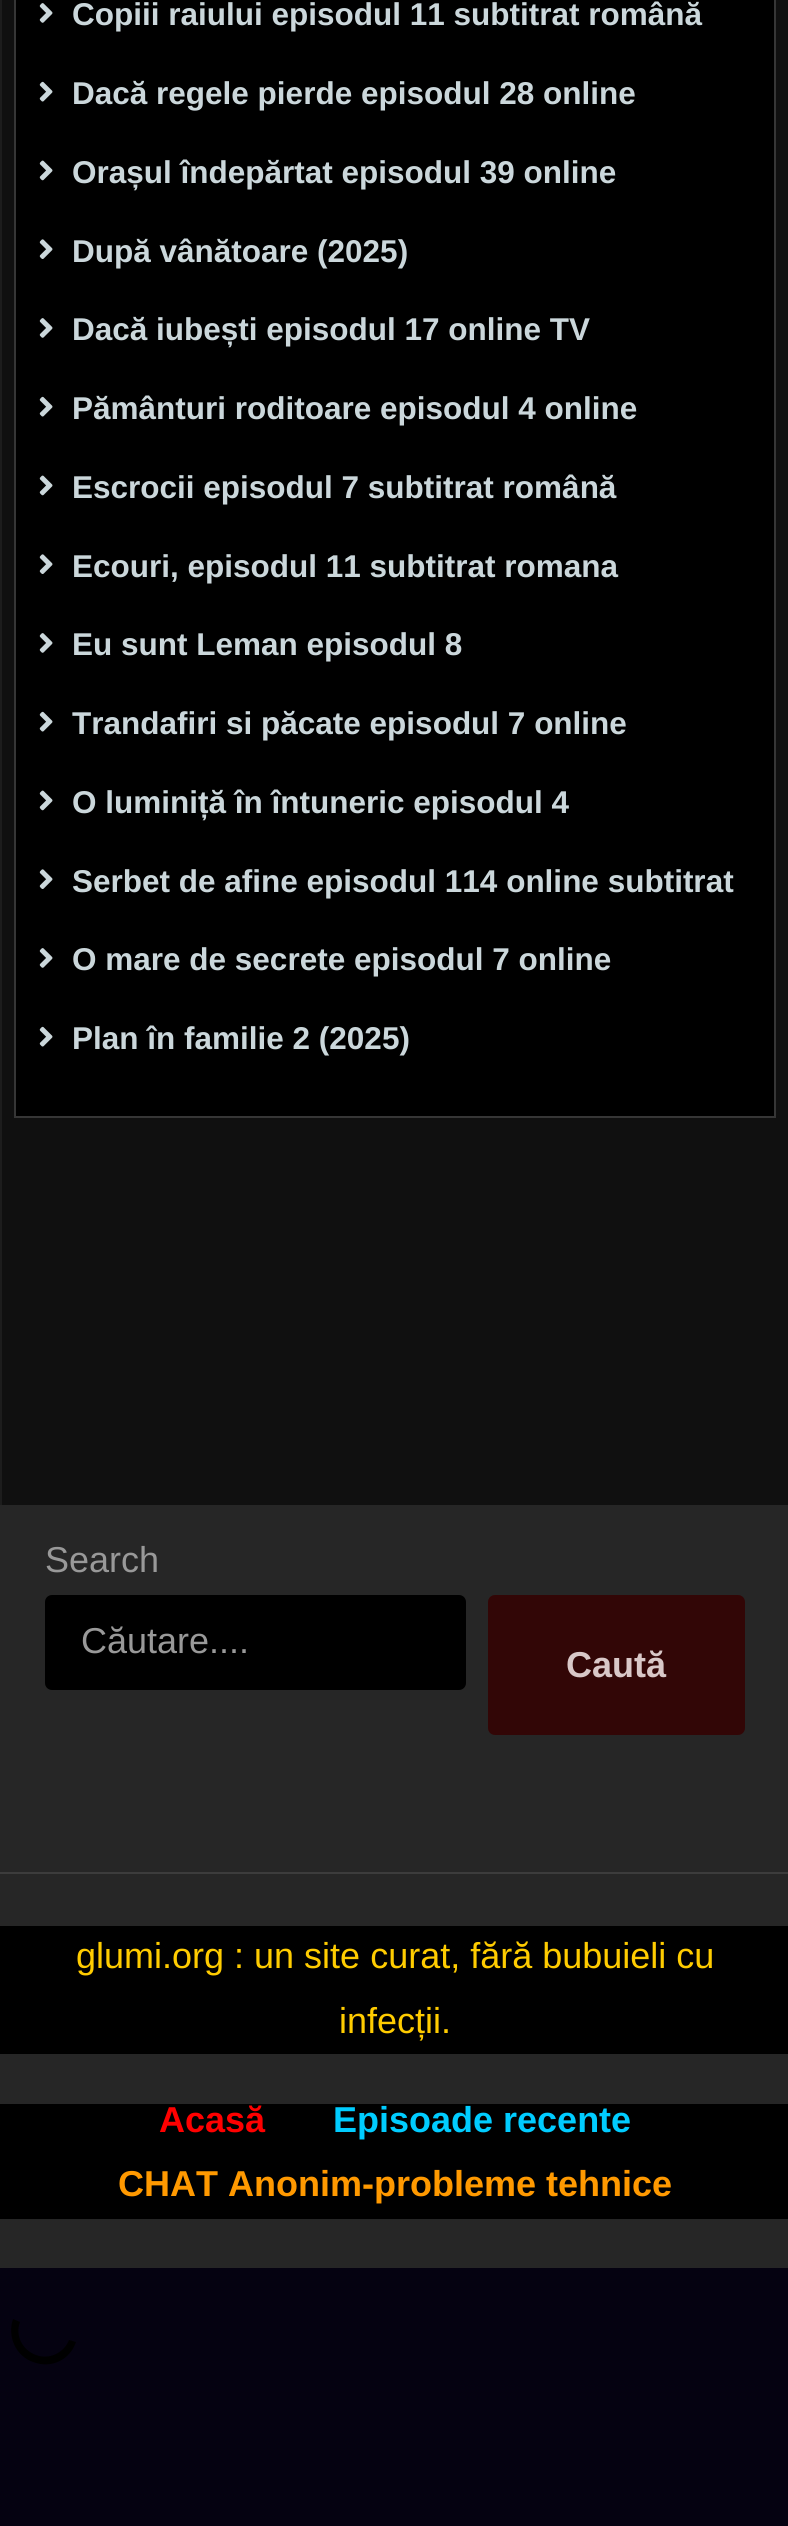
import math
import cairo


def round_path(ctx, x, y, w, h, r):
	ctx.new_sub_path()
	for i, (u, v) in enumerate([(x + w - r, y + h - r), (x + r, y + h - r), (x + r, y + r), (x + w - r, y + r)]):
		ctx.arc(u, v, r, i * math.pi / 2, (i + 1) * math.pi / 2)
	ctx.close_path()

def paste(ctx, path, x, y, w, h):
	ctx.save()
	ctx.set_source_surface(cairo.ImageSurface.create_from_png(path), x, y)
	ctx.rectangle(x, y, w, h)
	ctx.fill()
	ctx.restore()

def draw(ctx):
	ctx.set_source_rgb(0.02, 0.008, 0.067)
	ctx.paint()
	ctx.set_source_rgb(0.114, 0.114, 0.114)
	ctx.rectangle(0, 0, 2, 1505)
	ctx.fill()
	ctx.set_source_rgb(0.063, 0.063, 0.063)
	ctx.rectangle(2, 0, 786, 1505)
	ctx.fill()
	ctx.set_source_rgb(0, 0, 0)
	ctx.rectangle(15, -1, 760, 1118)
	ctx.fill_preserve()
	ctx.set_source_rgb(0.212, 0.212, 0.212)
	ctx.stroke()
	paste(ctx, 'media/1.png', 39, 3, 14, 20)
	ctx.select_font_face('Liberation Sans', cairo.FONT_SLANT_NORMAL, cairo.FONT_WEIGHT_BOLD)
	ctx.set_font_size(31.5)
	ctx.set_source_rgb(0.796, 0.843, 0.859)
	ctx.move_to(72, 25)
	ctx.show_text('Copiii raiului episodul 11 subtitrat română')
	paste(ctx, 'media/2.png', 39, 81, 14, 21)
	ctx.move_to(72, 104)
	ctx.show_text('Dacă regele pierde episodul 28 online')
	paste(ctx, 'media/3.png', 39, 160, 14, 21)
	ctx.move_to(72, 183)
	ctx.show_text('Orașul îndepărtat episodul 39 online')
	paste(ctx, 'media/4.png', 39, 239, 14, 20)
	ctx.move_to(72, 262)
	ctx.show_text('După vânătoare (2025)')
	paste(ctx, 'media/1.png', 39, 318, 14, 20)
	ctx.move_to(72, 340)
	ctx.show_text('Dacă iubești episodul 17 online TV')
	paste(ctx, 'media/2.png', 39, 396, 14, 21)
	ctx.move_to(72, 419)
	ctx.show_text('Pământuri roditoare episodul 4 online')
	paste(ctx, 'media/3.png', 39, 475, 14, 21)
	ctx.move_to(72, 498)
	ctx.show_text('Escrocii episodul 7 subtitrat română')
	paste(ctx, 'media/4.png', 39, 554, 14, 20)
	ctx.move_to(72, 577)
	ctx.show_text('Ecouri, episodul 11 subtitrat romana')
	paste(ctx, 'media/1.png', 39, 633, 14, 20)
	ctx.move_to(72, 655)
	ctx.show_text('Eu sunt Leman episodul 8')
	paste(ctx, 'media/2.png', 39, 711, 14, 21)
	ctx.move_to(72, 734)
	ctx.show_text('Trandafiri si păcate episodul 7 online')
	paste(ctx, 'media/3.png', 39, 790, 14, 21)
	ctx.move_to(72, 813)
	ctx.show_text('O luminiță în întuneric episodul 4')
	paste(ctx, 'media/4.png', 39, 869, 14, 20)
	ctx.move_to(72, 892)
	ctx.show_text('Serbet de afine episodul 114 online subtitrat')
	paste(ctx, 'media/1.png', 39, 948, 14, 20)
	ctx.move_to(72, 970)
	ctx.show_text('O mare de secrete episodul 7 online')
	paste(ctx, 'media/2.png', 39, 1026, 14, 21)
	ctx.move_to(72, 1049)
	ctx.show_text('Plan în familie 2 (2025)')
	ctx.set_source_rgb(0.149, 0.149, 0.149)
	ctx.rectangle(0, 1505, 788, 763)
	ctx.fill()
	ctx.select_font_face('Liberation Sans')
	ctx.set_font_size(36)
	ctx.set_source_rgb(0.6, 0.6, 0.6)
	ctx.move_to(45, 1572)
	ctx.show_text('Search')
	ctx.set_source_rgb(0, 0, 0)
	round_path(ctx, 45, 1595, 421, 95, 7)
	ctx.fill()
	ctx.set_source_rgb(0.6, 0.6, 0.6)
	ctx.move_to(81, 1653)
	ctx.show_text('Căutare....')
	ctx.set_source_rgb(0.196, 0.024, 0.024)
	round_path(ctx, 488, 1595, 257, 140, 7)
	ctx.fill()
	ctx.select_font_face('Liberation Sans', cairo.FONT_SLANT_NORMAL, cairo.FONT_WEIGHT_BOLD)
	ctx.set_source_rgb(0.851, 0.784, 0.784)
	ctx.move_to(566, 1677)
	ctx.show_text('Caută')
	ctx.set_source_rgb(0.235, 0.235, 0.235)
	ctx.rectangle(0, 1872, 788, 2)
	ctx.fill()
	ctx.set_source_rgb(0, 0, 0)
	ctx.rectangle(0, 1926, 788, 128)
	ctx.fill()
	ctx.select_font_face('Liberation Sans')
	ctx.set_source_rgb(1, 0.8, 0)
	ctx.move_to(76, 1968)
	ctx.show_text('glumi.org : un site curat, fără bubuieli cu')
	ctx.move_to(339, 2033)
	ctx.show_text('infecții.')
	ctx.set_source_rgb(0, 0, 0)
	ctx.rectangle(0, 2104, 788, 115)
	ctx.fill()
	ctx.select_font_face('Liberation Sans', cairo.FONT_SLANT_NORMAL, cairo.FONT_WEIGHT_BOLD)
	ctx.set_source_rgb(1, 0, 0)
	ctx.move_to(159, 2132)
	ctx.show_text('Acasă')
	ctx.set_source_rgb(0, 0.8, 1)
	ctx.move_to(333, 2132)
	ctx.show_text('Episoade recente')
	ctx.set_source_rgb(1, 0.6, 0)
	ctx.move_to(118, 2196)
	ctx.show_text('CHAT Anonim-probleme tehnice')
	ctx.set_source_rgb(0, 0, 0)
	ctx.new_path()
	ctx.move_to(13, 2319)
	ctx.curve_to(7, 2337, 16, 2356, 33, 2362)
	ctx.curve_to(51, 2369, 70, 2360, 76, 2342)
	ctx.line_to(69, 2340)
	ctx.curve_to(64, 2353, 49, 2360, 36, 2355)
	ctx.curve_to(22, 2350, 15, 2335, 20, 2322)
	ctx.close_path()
	ctx.fill()


surface = cairo.ImageSurface(cairo.FORMAT_RGB24, 788, 2526)
ctx = cairo.Context(surface)
options = cairo.FontOptions()
options.set_hint_metrics(cairo.HINT_METRICS_OFF)
options.set_hint_style(cairo.HINT_STYLE_NONE)
ctx.set_font_options(options)
ctx.set_miter_limit(4)
draw(ctx)
surface.write_to_png('image.png')
